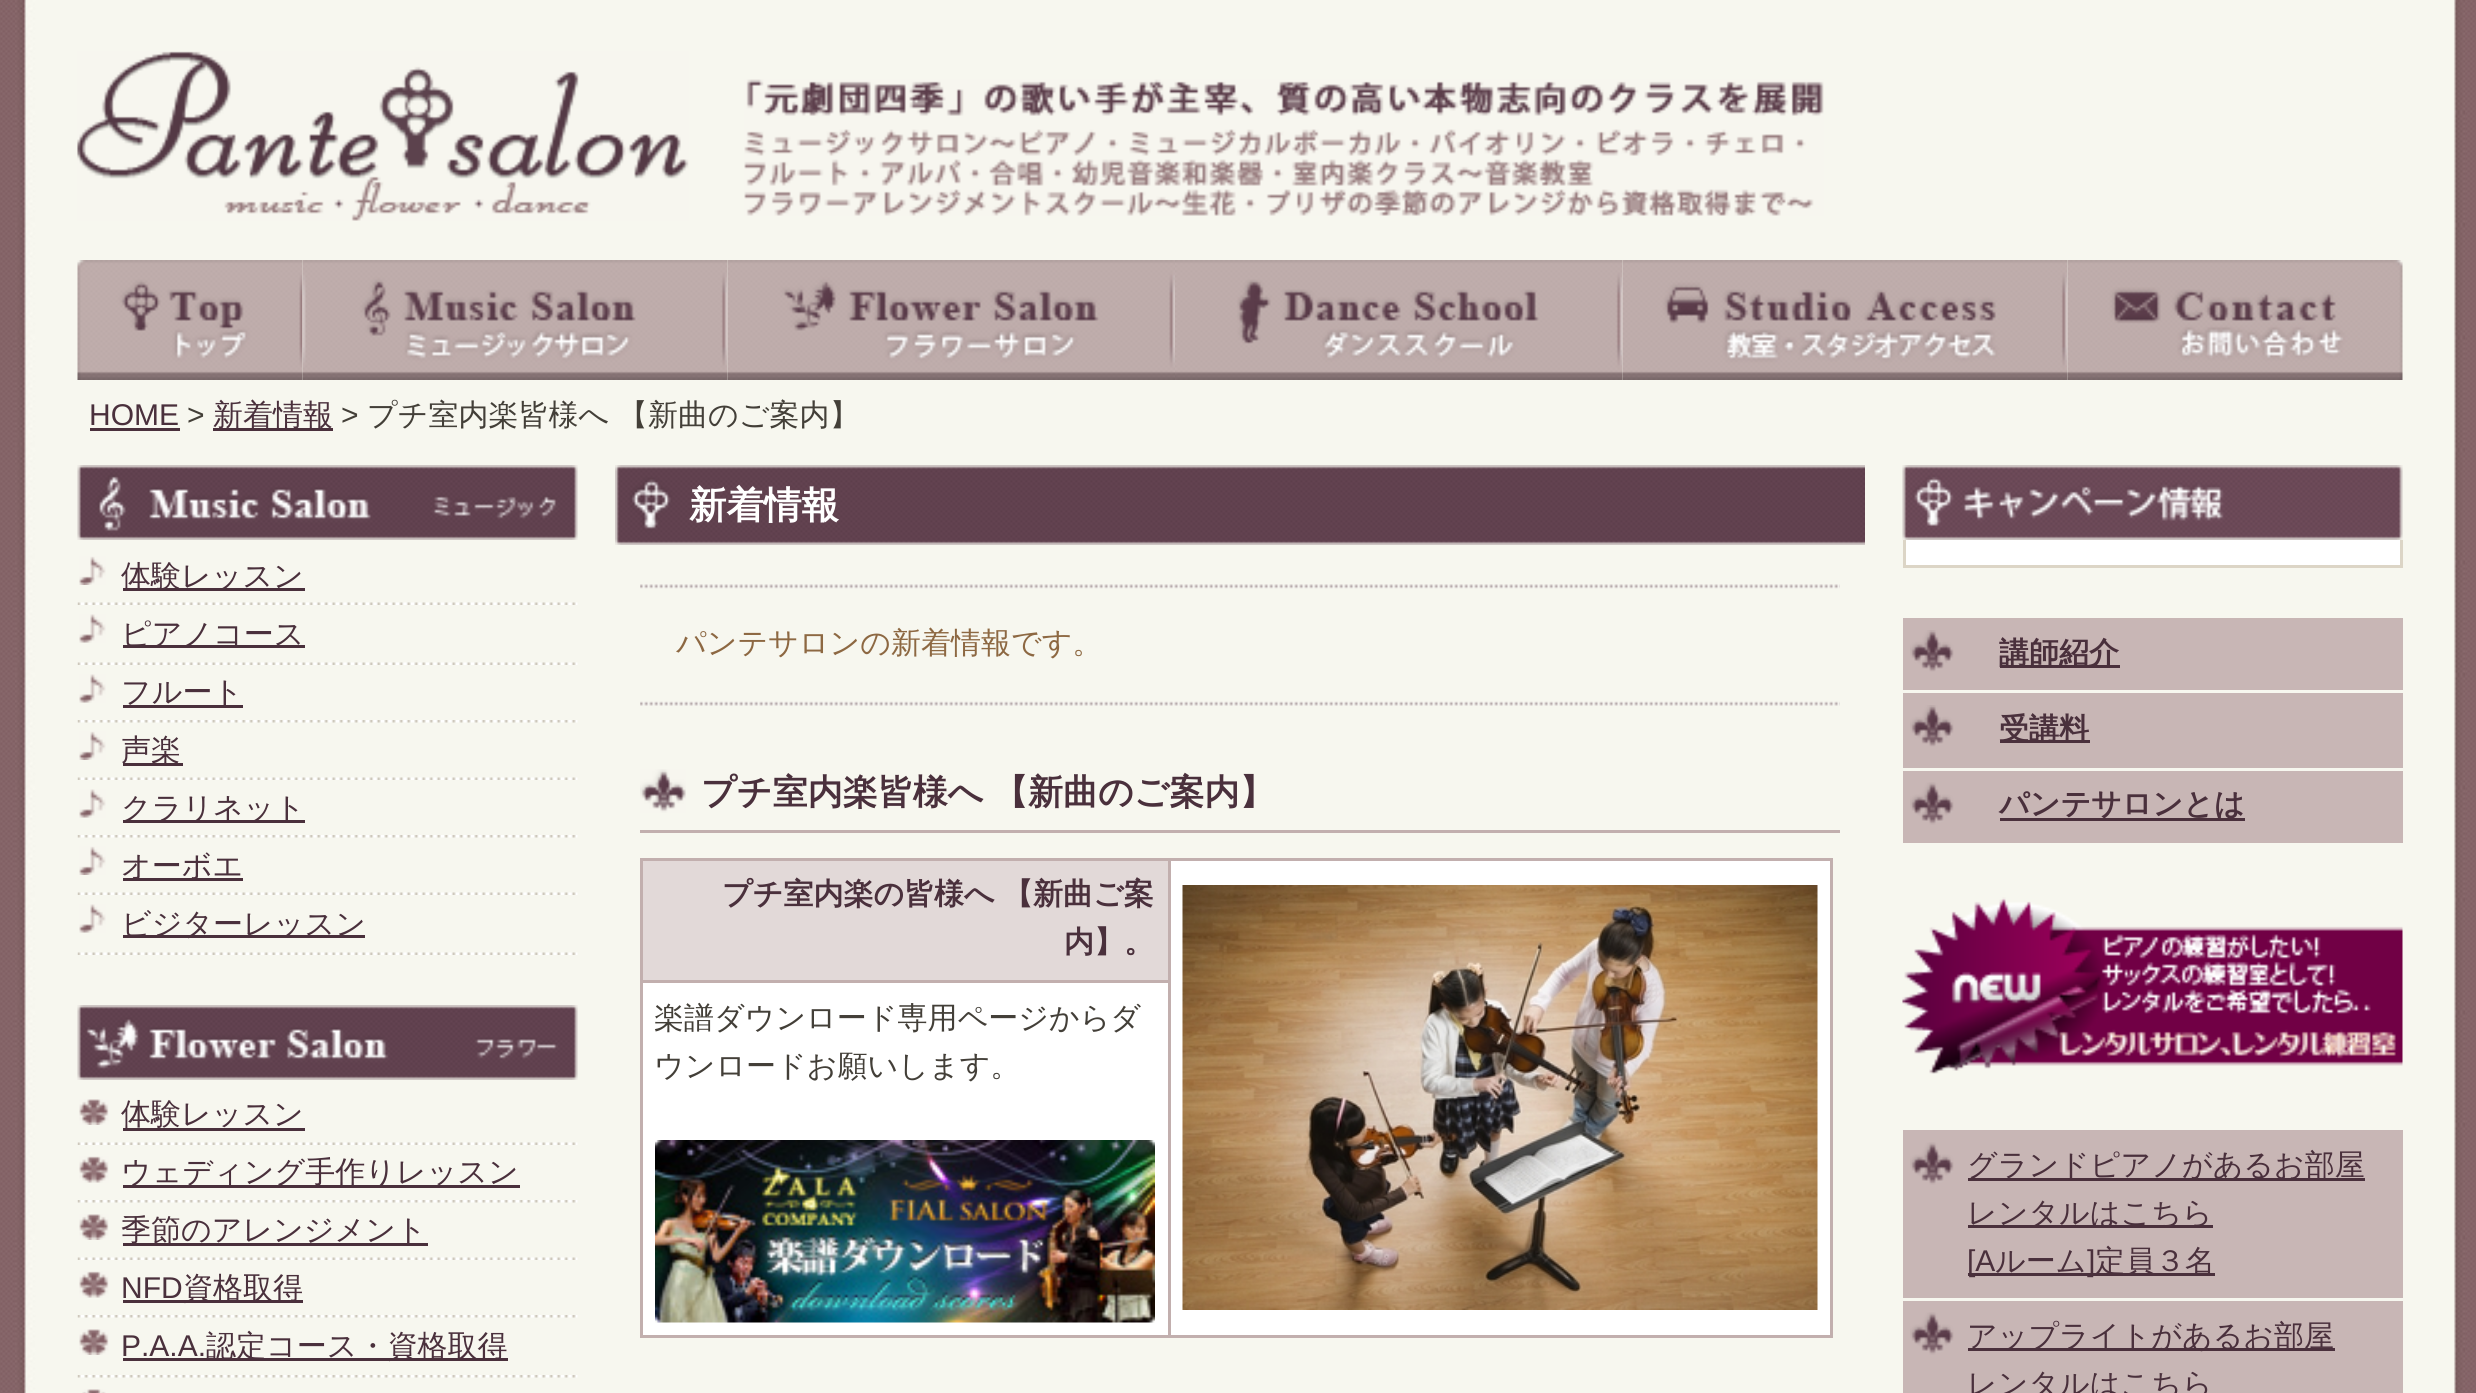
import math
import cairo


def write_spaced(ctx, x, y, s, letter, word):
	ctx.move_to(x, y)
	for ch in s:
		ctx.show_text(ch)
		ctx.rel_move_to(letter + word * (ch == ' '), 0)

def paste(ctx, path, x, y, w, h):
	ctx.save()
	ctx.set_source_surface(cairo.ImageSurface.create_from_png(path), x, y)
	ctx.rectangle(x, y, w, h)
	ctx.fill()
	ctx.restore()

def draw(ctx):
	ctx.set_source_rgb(1, 1, 1)
	ctx.paint()
	paste(ctx, 'media/1.png', 0, 0, 2476, 1393)
	paste(ctx, 'media/2.png', 15, 0, 2450, 1393)
	paste(ctx, 'media/3.png', 77, 51, 612, 170)
	paste(ctx, 'media/4.png', 744, 79, 1080, 137)
	paste(ctx, 'media/5.png', 77, 260, 226, 120)
	paste(ctx, 'media/6.png', 302, 260, 426, 120)
	paste(ctx, 'media/7.png', 727, 260, 448, 120)
	paste(ctx, 'media/8.png', 1175, 260, 448, 120)
	paste(ctx, 'media/9.png', 1622, 260, 446, 120)
	paste(ctx, 'media/10.png', 2067, 260, 336, 120)
	ctx.select_font_face('Liberation Sans')
	ctx.set_font_size(30)
	ctx.set_source_rgb(0.29, 0.188, 0.235)
	ctx.move_to(89, 425)
	ctx.show_text('HOME')
	ctx.rectangle(90, 428, 90, 3)
	ctx.fill()
	ctx.set_source_rgb(0.263, 0.247, 0.22)
	ctx.move_to(187, 425)
	ctx.show_text('>')
	ctx.set_source_rgb(0.29, 0.188, 0.235)
	ctx.rectangle(213, 428, 120, 3)
	ctx.fill()
	ctx.select_font_face('WenQuanYi Zen Hei Medium')
	ctx.move_to(213, 425)
	ctx.show_text('新着情報')
	ctx.select_font_face('Liberation Sans')
	ctx.set_source_rgb(0.263, 0.247, 0.22)
	ctx.move_to(341, 425)
	ctx.show_text('>')
	ctx.select_font_face('WenQuanYi Zen Hei Medium')
	ctx.move_to(367, 425)
	ctx.show_text('プチ室内楽皆様へ 【新曲のご案内】')
	paste(ctx, 'media/11.png', 77, 465, 501, 75)
	paste(ctx, 'media/12.png', 77, 602, 501, 3)
	paste(ctx, 'media/13.png', 79, 556, 27, 29)
	ctx.set_source_rgb(0.29, 0.188, 0.235)
	ctx.rectangle(123, 588, 182, 3)
	ctx.fill()
	ctx.move_to(121, 586)
	ctx.show_text('体験レッスン')
	paste(ctx, 'media/14.png', 77, 662, 501, 3)
	paste(ctx, 'media/15.png', 79, 614, 27, 29)
	ctx.rectangle(123, 645, 182, 3)
	ctx.fill()
	ctx.move_to(121, 644)
	ctx.show_text('ピアノコース')
	paste(ctx, 'media/16.png', 77, 720, 501, 3)
	paste(ctx, 'media/15.png', 79, 674, 27, 29)
	ctx.rectangle(123, 705, 120, 3)
	ctx.fill()
	ctx.move_to(121, 702)
	ctx.show_text('フルート')
	paste(ctx, 'media/17.png', 77, 777, 501, 3)
	paste(ctx, 'media/13.png', 79, 731, 27, 29)
	ctx.rectangle(123, 763, 60, 3)
	ctx.fill()
	ctx.move_to(121, 760)
	ctx.show_text('声楽')
	paste(ctx, 'media/18.png', 77, 835, 501, 3)
	paste(ctx, 'media/15.png', 79, 789, 27, 29)
	ctx.rectangle(123, 820, 182, 3)
	ctx.fill()
	ctx.move_to(121, 818)
	ctx.show_text('クラリネット')
	paste(ctx, 'media/19.png', 77, 892, 501, 3)
	paste(ctx, 'media/13.png', 79, 846, 27, 29)
	ctx.rectangle(123, 878, 120, 3)
	ctx.fill()
	ctx.move_to(121, 876)
	ctx.show_text('オーボエ')
	paste(ctx, 'media/20.png', 77, 952, 501, 3)
	paste(ctx, 'media/15.png', 79, 904, 27, 29)
	ctx.rectangle(123, 935, 242, 3)
	ctx.fill()
	ctx.move_to(121, 934)
	ctx.show_text('ビジターレッスン')
	paste(ctx, 'media/21.png', 77, 1005, 501, 75)
	paste(ctx, 'media/22.png', 77, 1142, 501, 3)
	paste(ctx, 'media/23.png', 79, 1099, 30, 26)
	ctx.rectangle(123, 1128, 182, 3)
	ctx.fill()
	ctx.move_to(121, 1124)
	ctx.show_text('体験レッスン')
	paste(ctx, 'media/24.png', 77, 1200, 501, 3)
	paste(ctx, 'media/25.png', 79, 1156, 30, 27)
	ctx.rectangle(123, 1185, 397, 3)
	ctx.fill()
	ctx.move_to(121, 1182)
	ctx.show_text('ウェディング手作りレッスン')
	paste(ctx, 'media/26.png', 77, 1257, 501, 3)
	paste(ctx, 'media/23.png', 79, 1214, 30, 26)
	ctx.rectangle(123, 1243, 305, 3)
	ctx.fill()
	ctx.move_to(121, 1240)
	ctx.show_text('季節のアレンジメント')
	paste(ctx, 'media/27.png', 77, 1315, 501, 3)
	paste(ctx, 'media/28.png', 79, 1271, 30, 27)
	ctx.select_font_face('Liberation Sans')
	ctx.move_to(121, 1298)
	ctx.show_text('NFD')
	ctx.rectangle(123, 1300, 180, 3)
	ctx.fill()
	ctx.select_font_face('WenQuanYi Zen Hei Medium')
	ctx.move_to(183, 1298)
	ctx.show_text('資格取得')
	paste(ctx, 'media/16.png', 77, 1375, 501, 3)
	paste(ctx, 'media/23.png', 79, 1329, 30, 26)
	ctx.select_font_face('Liberation Sans')
	ctx.move_to(121, 1356)
	ctx.show_text('P.A.A.')
	ctx.rectangle(123, 1358, 385, 3)
	ctx.fill()
	ctx.select_font_face('WenQuanYi Zen Hei Medium')
	ctx.move_to(206, 1356)
	ctx.show_text('認定コース・資格取得')
	paste(ctx, 'media/29.png', 82, 1389, 24, 4)
	paste(ctx, 'media/30.png', 615, 465, 1250, 80)
	ctx.select_font_face('WenQuanYi Zen Hei', cairo.FONT_SLANT_NORMAL, cairo.FONT_WEIGHT_BOLD)
	ctx.set_font_size(37.5)
	ctx.set_source_rgb(1, 1, 1)
	ctx.move_to(689, 518)
	ctx.show_text('新着情報')
	paste(ctx, 'media/31.png', 640, 584, 1200, 5)
	paste(ctx, 'media/32.png', 640, 701, 1200, 5)
	ctx.select_font_face('WenQuanYi Zen Hei Medium')
	ctx.set_font_size(30)
	ctx.set_source_rgb(0.553, 0.408, 0.259)
	ctx.move_to(676, 653)
	ctx.show_text('パンテサロンの新着情報です。')
	paste(ctx, 'media/33.png', 640, 769, 46, 44)
	ctx.set_source_rgb(0.761, 0.686, 0.682)
	ctx.rectangle(640, 830, 1200, 3)
	ctx.fill()
	ctx.select_font_face('WenQuanYi Zen Hei', cairo.FONT_SLANT_NORMAL, cairo.FONT_WEIGHT_BOLD)
	ctx.set_font_size(35)
	ctx.set_source_rgb(0.29, 0.188, 0.235)
	write_spaced(ctx, 701, 804, 'プチ室内楽皆様へ 【新曲のご案内】', 0, -1)
	ctx.set_source_rgb(0.886, 0.851, 0.847)
	ctx.rectangle(643, 861, 525, 119)
	ctx.fill()
	ctx.set_source_rgb(0.761, 0.686, 0.682)
	ctx.rectangle(1168, 858, 665, 3)
	ctx.rectangle(1830, 858, 3, 480)
	ctx.rectangle(640, 1335, 530, 3)
	ctx.rectangle(1168, 1335, 665, 3)
	ctx.rectangle(640, 980, 530, 3)
	ctx.rectangle(1168, 858, 3, 480)
	ctx.rectangle(640, 858, 530, 3)
	ctx.rectangle(640, 980, 3, 358)
	ctx.rectangle(640, 858, 3, 125)
	ctx.fill()
	ctx.set_font_size(30)
	ctx.set_source_rgb(0.29, 0.188, 0.235)
	for x, y, s in [
		(722, 904, 'プチ室内楽の皆様へ'),
		(1003, 904, '【新曲ご案'),
		(1064, 952, '内】。'),
	]:
		ctx.move_to(x, y)
		ctx.show_text(s)
	ctx.set_source_rgb(1, 1, 1)
	ctx.rectangle(1171, 861, 659, 474)
	ctx.fill()
	paste(ctx, 'media/34.png', 1182, 885, 636, 425)
	ctx.rectangle(643, 983, 525, 352)
	ctx.fill()
	ctx.select_font_face('WenQuanYi Zen Hei Medium')
	ctx.set_source_rgb(0.263, 0.247, 0.22)
	ctx.move_to(654, 1028)
	ctx.show_text('楽譜ダウンロード専用ページからダ')
	ctx.move_to(654, 1076)
	ctx.show_text('ウンロードお願いします。')
	paste(ctx, 'media/35.png', 655, 1140, 500, 183)
	paste(ctx, 'media/36.png', 1902, 465, 501, 75)
	ctx.set_source_rgb(1, 1, 1)
	ctx.rectangle(1906, 540, 494, 25)
	ctx.fill()
	ctx.set_source_rgb(0.863, 0.835, 0.776)
	ctx.rectangle(2400, 540, 3, 28)
	ctx.rectangle(1903, 565, 500, 3)
	ctx.rectangle(1903, 540, 3, 28)
	ctx.fill()
	ctx.set_source_rgb(0.784, 0.714, 0.71)
	ctx.rectangle(1903, 618, 500, 72)
	ctx.fill()
	paste(ctx, 'media/37.png', 1910, 630, 44, 42)
	ctx.set_source_rgb(0.29, 0.188, 0.235)
	ctx.rectangle(2000, 665, 120, 3)
	ctx.fill()
	ctx.select_font_face('WenQuanYi Zen Hei', cairo.FONT_SLANT_NORMAL, cairo.FONT_WEIGHT_BOLD)
	ctx.move_to(1999, 663)
	ctx.show_text('講師紹介')
	ctx.set_source_rgb(0.784, 0.714, 0.71)
	ctx.rectangle(1903, 693, 500, 75)
	ctx.fill()
	paste(ctx, 'media/37.png', 1910, 705, 44, 42)
	ctx.set_source_rgb(0.29, 0.188, 0.235)
	ctx.rectangle(2000, 740, 90, 3)
	ctx.fill()
	ctx.move_to(1999, 739)
	ctx.show_text('受講料')
	ctx.set_source_rgb(0.784, 0.714, 0.71)
	ctx.rectangle(1903, 771, 500, 72)
	ctx.fill()
	paste(ctx, 'media/38.png', 1910, 782, 44, 43)
	ctx.set_source_rgb(0.29, 0.188, 0.235)
	ctx.rectangle(2000, 818, 245, 3)
	ctx.fill()
	ctx.move_to(1999, 814)
	ctx.show_text('パンテサロンとは')
	paste(ctx, 'media/39.png', 1902, 897, 501, 177)
	ctx.set_source_rgb(0.784, 0.714, 0.71)
	ctx.rectangle(1903, 1130, 500, 168)
	ctx.fill()
	paste(ctx, 'media/40.png', 1910, 1142, 44, 43)
	ctx.set_source_rgb(0.29, 0.188, 0.235)
	ctx.rectangle(1968, 1178, 397, 3)
	ctx.fill()
	ctx.select_font_face('WenQuanYi Zen Hei Medium')
	ctx.move_to(1967, 1175)
	ctx.show_text('グランドピアノがあるお部屋')
	ctx.rectangle(1968, 1225, 245, 3)
	ctx.fill()
	ctx.move_to(1967, 1223)
	ctx.show_text('レンタルはこちら')
	ctx.rectangle(1968, 1273, 247, 3)
	ctx.fill()
	ctx.select_font_face('Liberation Sans')
	ctx.move_to(1967, 1271)
	ctx.show_text('[A')
	ctx.select_font_face('WenQuanYi Zen Hei Medium')
	ctx.move_to(1995, 1271)
	ctx.show_text('ルーム')
	ctx.select_font_face('Liberation Sans')
	ctx.move_to(2087, 1271)
	ctx.show_text(']')
	ctx.select_font_face('WenQuanYi Zen Hei Medium')
	ctx.move_to(2095, 1271)
	ctx.show_text('定員３名')
	ctx.set_source_rgb(0.784, 0.714, 0.71)
	ctx.rectangle(1903, 1301, 500, 92)
	ctx.fill()
	paste(ctx, 'media/38.png', 1910, 1312, 44, 43)
	ctx.set_source_rgb(0.29, 0.188, 0.235)
	ctx.rectangle(1968, 1348, 367, 3)
	ctx.fill()
	ctx.move_to(1967, 1346)
	ctx.show_text('アップライトがあるお部屋')
	ctx.move_to(1967, 1394)
	ctx.show_text('レンタルはこちら')


surface = cairo.ImageSurface(cairo.FORMAT_RGB24, 2476, 1393)
ctx = cairo.Context(surface)
options = cairo.FontOptions()
options.set_hint_metrics(cairo.HINT_METRICS_OFF)
options.set_hint_style(cairo.HINT_STYLE_NONE)
ctx.set_font_options(options)
ctx.set_miter_limit(4)
draw(ctx)
surface.write_to_png('image.png')
